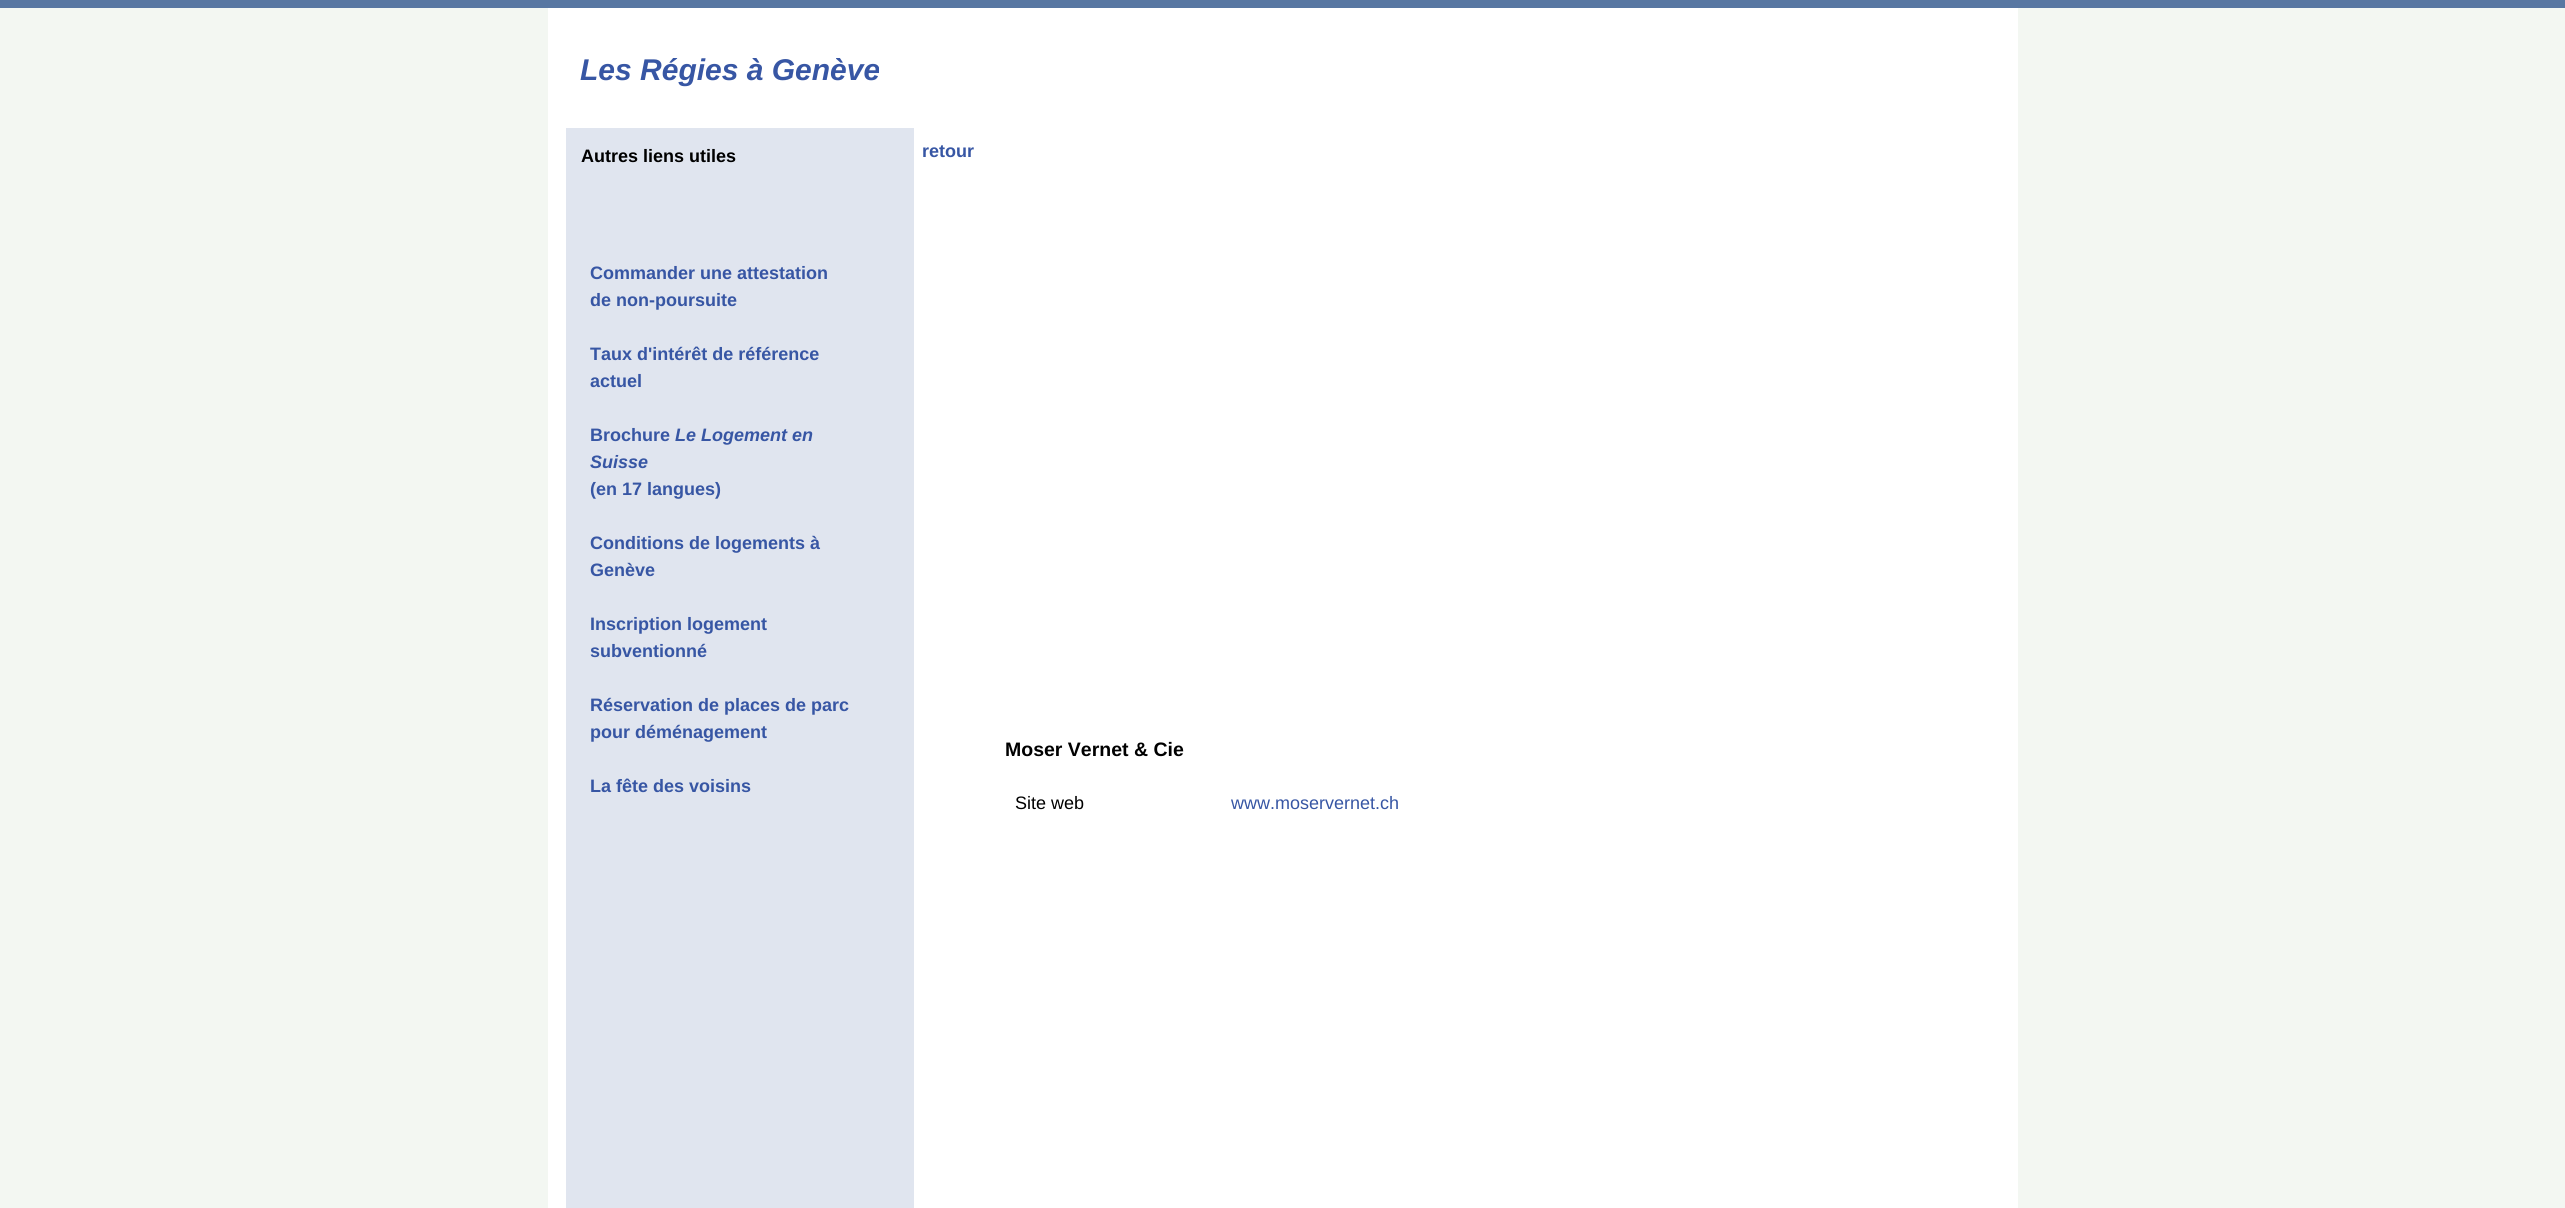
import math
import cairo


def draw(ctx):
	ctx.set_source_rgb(0.953, 0.965, 0.949)
	ctx.paint()
	ctx.set_source_rgb(0.345, 0.467, 0.635)
	ctx.rectangle(0, 0, 2565, 8)
	ctx.fill()
	ctx.set_source_rgb(1, 1, 1)
	ctx.rectangle(548, 8, 1470, 1200)
	ctx.fill()
	ctx.select_font_face('Liberation Sans', cairo.FONT_SLANT_ITALIC, cairo.FONT_WEIGHT_BOLD)
	ctx.set_font_size(30)
	ctx.set_source_rgb(0.216, 0.337, 0.643)
	ctx.move_to(580, 80)
	ctx.show_text('Les Régies à Genève')
	ctx.set_source_rgb(0.878, 0.898, 0.937)
	ctx.rectangle(566, 128, 348, 1080)
	ctx.fill()
	ctx.select_font_face('Liberation Sans', cairo.FONT_SLANT_NORMAL, cairo.FONT_WEIGHT_BOLD)
	ctx.set_font_size(18)
	ctx.set_source_rgb(0, 0, 0)
	ctx.move_to(581, 162)
	ctx.show_text('Autres liens utiles')
	ctx.set_source_rgb(0.216, 0.337, 0.643)
	for x, y, s in [
		(590, 279, 'Commander une attestation'),
		(590, 306, 'de non-poursuite'),
		(590, 360, 'Taux d\'intérêt de référence'),
		(590, 387, 'actuel'),
		(590, 441, 'Brochure'),
	]:
		ctx.move_to(x, y)
		ctx.show_text(s)
	ctx.select_font_face('Liberation Sans', cairo.FONT_SLANT_ITALIC, cairo.FONT_WEIGHT_BOLD)
	ctx.move_to(675, 441)
	ctx.show_text('Le Logement en')
	ctx.move_to(590, 468)
	ctx.show_text('Suisse')
	ctx.select_font_face('Liberation Sans', cairo.FONT_SLANT_NORMAL, cairo.FONT_WEIGHT_BOLD)
	for x, y, s in [
		(590, 495, '(en 17 langues)'),
		(590, 549, 'Conditions de logements à'),
		(590, 576, 'Genève'),
		(590, 630, 'Inscription logement'),
		(590, 657, 'subventionné'),
		(590, 711, 'Réservation de places de parc'),
		(590, 738, 'pour déménagement'),
		(590, 792, 'La fête des voisins'),
		(922, 157, 'retour'),
	]:
		ctx.move_to(x, y)
		ctx.show_text(s)
	ctx.set_font_size(19.5)
	ctx.set_source_rgb(0, 0, 0)
	ctx.move_to(1005, 756)
	ctx.show_text('Moser Vernet & Cie')
	ctx.select_font_face('Liberation Sans')
	ctx.set_font_size(18)
	ctx.move_to(1015, 809)
	ctx.show_text('Site web')
	ctx.set_source_rgb(0.216, 0.337, 0.643)
	ctx.move_to(1231, 809)
	ctx.show_text('www.moservernet.ch')


surface = cairo.ImageSurface(cairo.FORMAT_RGB24, 2565, 1208)
ctx = cairo.Context(surface)
options = cairo.FontOptions()
options.set_hint_metrics(cairo.HINT_METRICS_OFF)
options.set_hint_style(cairo.HINT_STYLE_NONE)
ctx.set_font_options(options)
ctx.set_miter_limit(4)
draw(ctx)
surface.write_to_png('image.png')
